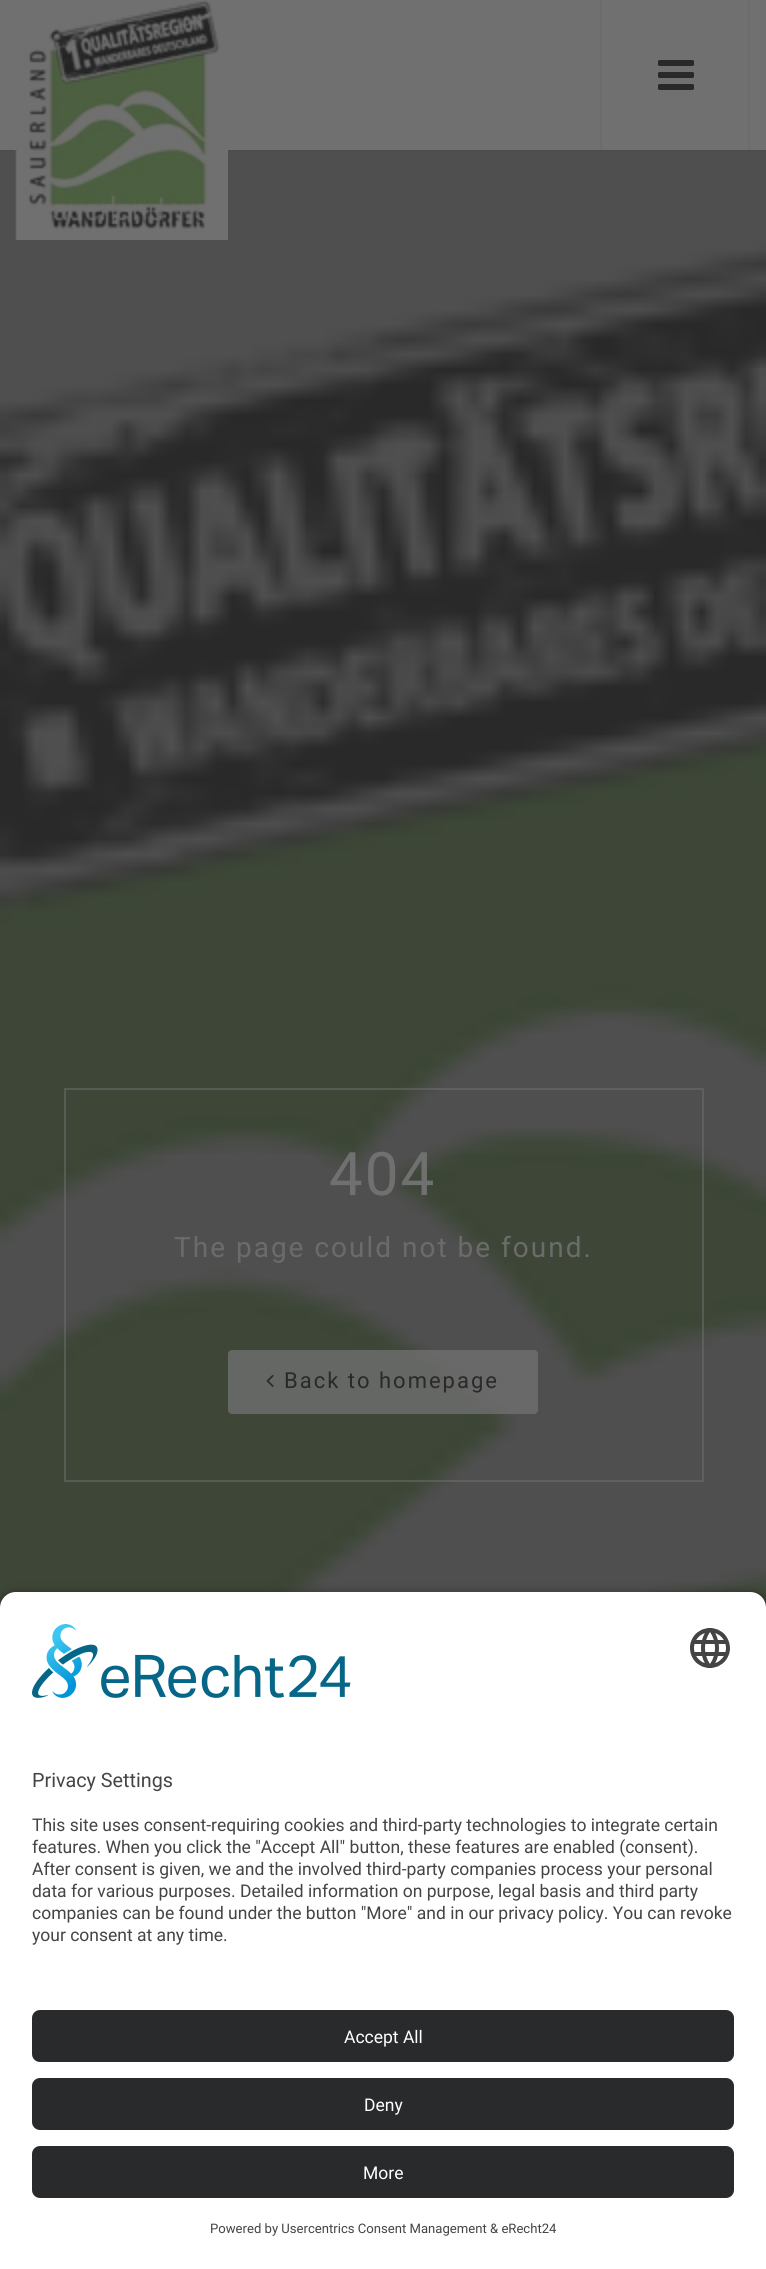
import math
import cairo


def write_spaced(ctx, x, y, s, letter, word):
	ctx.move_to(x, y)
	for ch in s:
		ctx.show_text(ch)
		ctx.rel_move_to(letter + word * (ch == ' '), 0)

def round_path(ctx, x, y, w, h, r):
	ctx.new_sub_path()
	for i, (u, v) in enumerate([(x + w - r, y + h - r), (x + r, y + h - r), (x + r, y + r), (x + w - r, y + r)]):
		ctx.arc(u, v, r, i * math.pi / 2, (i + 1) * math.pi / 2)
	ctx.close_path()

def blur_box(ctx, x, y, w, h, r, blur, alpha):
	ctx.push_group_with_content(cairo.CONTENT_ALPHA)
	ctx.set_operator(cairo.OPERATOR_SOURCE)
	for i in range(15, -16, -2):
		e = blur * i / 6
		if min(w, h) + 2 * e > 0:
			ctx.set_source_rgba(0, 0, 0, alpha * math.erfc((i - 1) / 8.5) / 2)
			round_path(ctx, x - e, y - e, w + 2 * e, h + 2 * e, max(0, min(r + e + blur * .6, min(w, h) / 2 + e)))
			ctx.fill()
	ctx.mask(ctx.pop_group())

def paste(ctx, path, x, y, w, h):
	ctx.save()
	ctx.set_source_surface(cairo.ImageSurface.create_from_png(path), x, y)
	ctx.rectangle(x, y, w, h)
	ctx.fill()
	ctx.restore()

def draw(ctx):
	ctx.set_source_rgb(0.439, 0.439, 0.439)
	ctx.paint()
	ctx.set_source_rgb(0.31, 0.31, 0.31)
	ctx.rectangle(0, 152, 766, 86)
	ctx.fill()
	ctx.set_source_rgb(0.302, 0.302, 0.302)
	ctx.rectangle(0, 150, 766, 2)
	ctx.fill()
	paste(ctx, 'media/3.png', 0, 238, 766, 1370)
	paste(ctx, 'media/1.png', 15, 0, 213, 240)
	ctx.set_source_rgb(0.424, 0.424, 0.424)
	ctx.rectangle(748, 0, 2, 150)
	ctx.fill()
	ctx.rectangle(600, 0, 2, 150)
	ctx.fill()
	paste(ctx, 'media/2.png', 658, 60, 36, 30)
	ctx.rectangle(65, 1089, 638, 392)
	ctx.set_source_rgba(0.439, 0.439, 0.439, 0.5)
	ctx.stroke()
	ctx.select_font_face('Roboto')
	ctx.set_font_size(60)
	ctx.set_source_rgb(0.439, 0.439, 0.439)
	write_spaced(ctx, 329, 1195, '404', 2, 0)
	ctx.set_font_size(28)
	ctx.set_source_rgb(0.42, 0.42, 0.416)
	write_spaced(ctx, 174, 1257, 'The page could not be found.', 2, 0)
	ctx.set_source_rgba(0.439, 0.439, 0.439, 0.8)
	round_path(ctx, 228, 1350, 310, 64, 4)
	ctx.fill()
	paste(ctx, 'media/4.png', 266, 1374, 8, 13)
	ctx.set_font_size(22)
	ctx.set_source_rgb(0.161, 0.161, 0.161)
	write_spaced(ctx, 284, 1388, 'Back to homepage', 2, 0)
	ctx.set_source_rgb(0, 0, 0)
	blur_box(ctx, 0, 1598, 766, 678, 16, 7, 0.8)
	ctx.set_source_rgb(1, 1, 1)
	ctx.new_path()
	ctx.move_to(16, 1592)
	ctx.line_to(750, 1592)
	ctx.curve_to(759, 1592, 766, 1599, 766, 1608)
	ctx.line_to(766, 1986)
	ctx.line_to(0, 1986)
	ctx.line_to(0, 1608)
	ctx.curve_to(0, 1599, 7, 1592, 16, 1592)
	ctx.close_path()
	ctx.fill()
	paste(ctx, 'media/5.png', 32, 1624, 319, 74)
	paste(ctx, 'media/6.png', 690, 1628, 40, 40)
	ctx.set_font_size(19.75)
	ctx.set_source_rgb(0.267, 0.267, 0.267)
	ctx.move_to(32, 1787)
	ctx.show_text('Privacy Settings')
	ctx.set_font_size(17.5)
	for x, y, s in [
		(32, 1831, 'This site uses consent-requiring cookies and third-party technologies to integrate certain'),
		(32, 1853, 'features. When you click the "Accept All" button, these features are enabled (consent).'),
		(32, 1875, 'After consent is given, we and the involved third-party companies process your personal'),
		(32, 1897, 'data for various purposes. Detailed information on purpose, legal basis and third party'),
		(32, 1919, 'companies can be found under the button "More" and in our privacy policy. You can revoke'),
		(32, 1941, 'your consent at any time.'),
	]:
		ctx.move_to(x, y)
		ctx.show_text(s)
	ctx.set_source_rgb(1, 1, 1)
	ctx.rectangle(0, 1986, 766, 283)
	ctx.fill()
	ctx.set_source_rgb(0.161, 0.165, 0.169)
	round_path(ctx, 32, 2010, 702, 52, 8)
	ctx.fill()
	ctx.set_source_rgb(1, 1, 1)
	ctx.move_to(344, 2043)
	ctx.show_text('Accept All')
	ctx.set_source_rgb(0.161, 0.165, 0.169)
	round_path(ctx, 32, 2078, 702, 52, 8)
	ctx.fill()
	ctx.set_source_rgb(1, 1, 1)
	ctx.move_to(364, 2111)
	ctx.show_text('Deny')
	ctx.set_source_rgb(0.161, 0.165, 0.169)
	round_path(ctx, 32, 2146, 702, 52, 8)
	ctx.fill()
	ctx.set_source_rgb(1, 1, 1)
	ctx.move_to(363, 2179)
	ctx.show_text('More')
	ctx.set_font_size(13.1)
	ctx.set_source_rgb(0.267, 0.267, 0.267)
	ctx.move_to(210, 2233)
	ctx.show_text('Powered by Usercentrics Consent Management')
	ctx.move_to(490, 2233)
	ctx.show_text('& eRecht24')


surface = cairo.ImageSurface(cairo.FORMAT_RGB24, 766, 2269)
ctx = cairo.Context(surface)
options = cairo.FontOptions()
options.set_hint_metrics(cairo.HINT_METRICS_OFF)
options.set_hint_style(cairo.HINT_STYLE_NONE)
ctx.set_font_options(options)
ctx.set_miter_limit(4)
draw(ctx)
surface.write_to_png('image.png')
